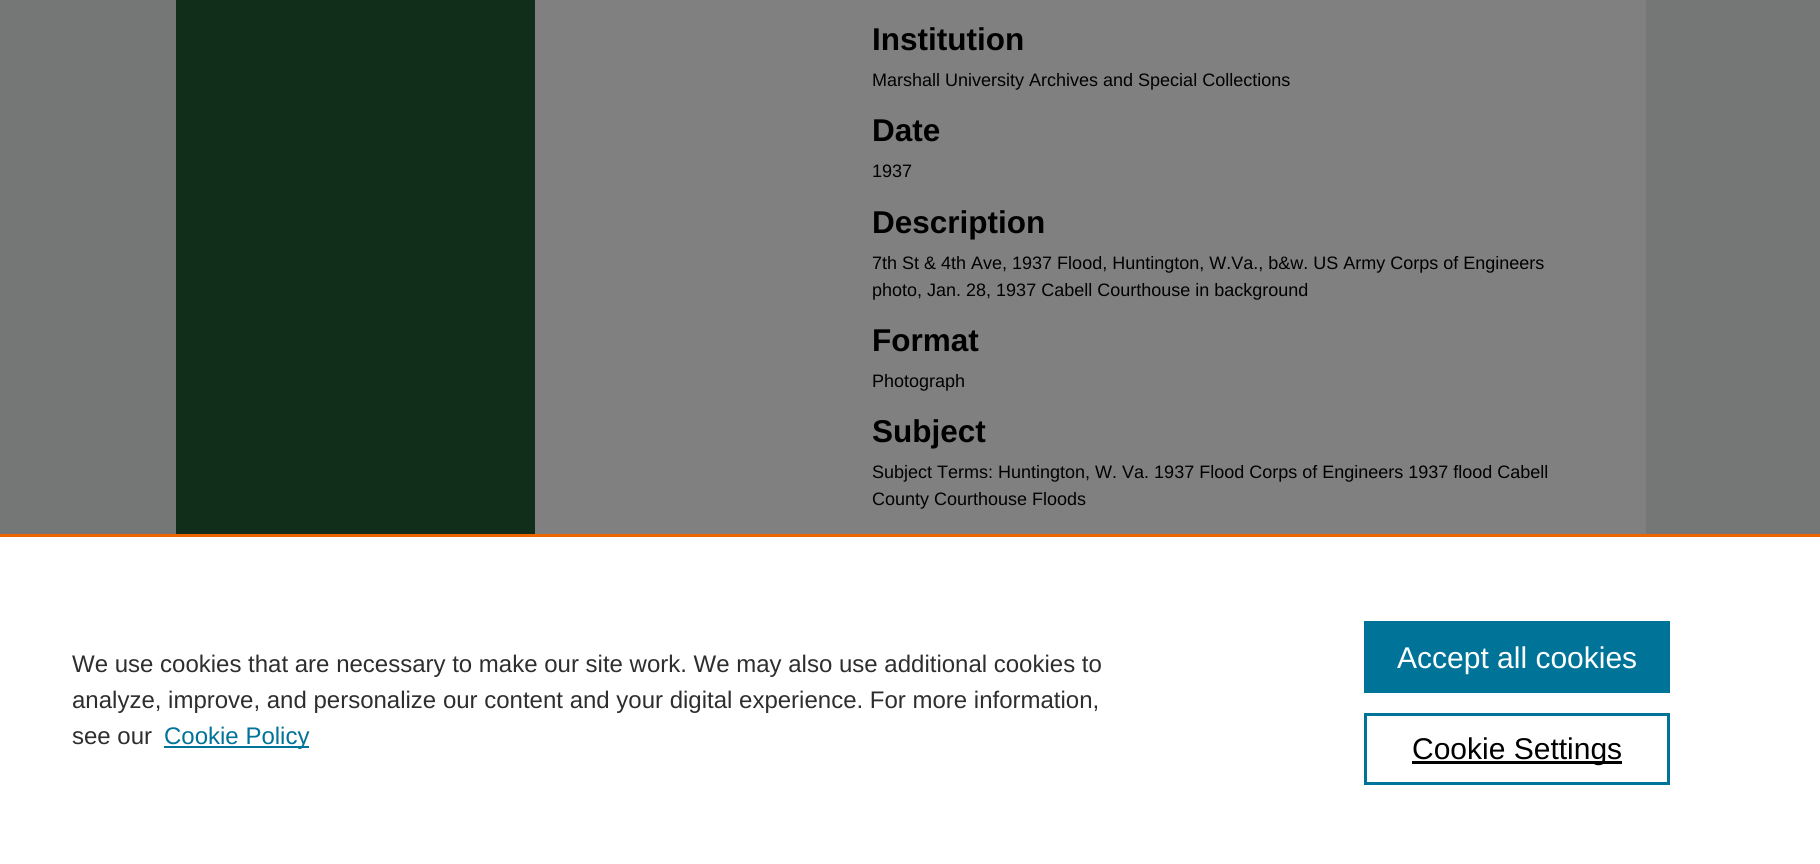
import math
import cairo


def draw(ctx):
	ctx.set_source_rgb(0.459, 0.463, 0.463)
	ctx.paint()
	ctx.set_source_rgb(0.067, 0.18, 0.102)
	ctx.rectangle(176, 0, 359, 534)
	ctx.fill()
	ctx.set_source_rgb(0.502, 0.502, 0.502)
	ctx.rectangle(535, 0, 1111, 534)
	ctx.fill()
	ctx.select_font_face('Liberation Sans', cairo.FONT_SLANT_NORMAL, cairo.FONT_WEIGHT_BOLD)
	ctx.set_font_size(31.5)
	ctx.set_source_rgb(0, 0, 0)
	ctx.move_to(872, 50)
	ctx.show_text('Institution')
	ctx.select_font_face('Liberation Sans')
	ctx.set_font_size(18)
	ctx.move_to(872, 86)
	ctx.show_text('Marshall University Archives and Special Collections')
	ctx.select_font_face('Liberation Sans', cairo.FONT_SLANT_NORMAL, cairo.FONT_WEIGHT_BOLD)
	ctx.set_font_size(31.5)
	ctx.move_to(872, 141)
	ctx.show_text('Date')
	ctx.select_font_face('Liberation Sans')
	ctx.set_font_size(18)
	ctx.move_to(872, 177)
	ctx.show_text('1937')
	ctx.select_font_face('Liberation Sans', cairo.FONT_SLANT_NORMAL, cairo.FONT_WEIGHT_BOLD)
	ctx.set_font_size(31.5)
	ctx.move_to(872, 233)
	ctx.show_text('Description')
	ctx.select_font_face('Liberation Sans')
	ctx.set_font_size(18)
	ctx.move_to(872, 269)
	ctx.show_text('7th St & 4th Ave, 1937 Flood, Huntington, W.Va., b&w. US Army Corps of Engineers')
	ctx.move_to(872, 296)
	ctx.show_text('photo, Jan. 28, 1937 Cabell Courthouse in background')
	ctx.select_font_face('Liberation Sans', cairo.FONT_SLANT_NORMAL, cairo.FONT_WEIGHT_BOLD)
	ctx.set_font_size(31.5)
	ctx.move_to(872, 351)
	ctx.show_text('Format')
	ctx.select_font_face('Liberation Sans')
	ctx.set_font_size(18)
	ctx.move_to(872, 387)
	ctx.show_text('Photograph')
	ctx.select_font_face('Liberation Sans', cairo.FONT_SLANT_NORMAL, cairo.FONT_WEIGHT_BOLD)
	ctx.set_font_size(31.5)
	ctx.move_to(872, 442)
	ctx.show_text('Subject')
	ctx.select_font_face('Liberation Sans')
	ctx.set_font_size(18)
	ctx.move_to(872, 478)
	ctx.show_text('Subject Terms: Huntington, W. Va. 1937 Flood Corps of Engineers 1937 flood Cabell')
	ctx.move_to(872, 505)
	ctx.show_text('County Courthouse Floods')
	ctx.set_source_rgb(1, 1, 1)
	ctx.rectangle(0, 537, 1820, 327)
	ctx.fill()
	ctx.set_source_rgb(0.922, 0.396, 0)
	ctx.rectangle(0, 534, 1820, 3)
	ctx.fill()
	ctx.set_font_size(24)
	ctx.set_source_rgb(0.18, 0.18, 0.18)
	for x, y, s in [
		(72, 672, 'We use cookies that are necessary to make our site work. We may also use additional cookies to'),
		(72, 708, 'analyze, improve, and personalize our content and your digital experience. For more information,'),
		(72, 744, 'see our'),
	]:
		ctx.move_to(x, y)
		ctx.show_text(s)
	ctx.set_source_rgb(0, 0.451, 0.596)
	ctx.rectangle(164, 746, 145, 2)
	ctx.fill()
	ctx.move_to(164, 744)
	ctx.show_text('Cookie Policy')
	ctx.rectangle(1364, 621, 306, 72)
	ctx.fill()
	ctx.set_font_size(30)
	ctx.set_source_rgb(1, 1, 1)
	ctx.move_to(1397, 668)
	ctx.show_text('Accept all cookies')
	ctx.rectangle(1365.5, 714.5, 303, 69)
	ctx.set_source_rgb(0, 0.451, 0.596)
	ctx.set_line_width(3)
	ctx.stroke()
	ctx.set_source_rgb(0, 0, 0)
	ctx.rectangle(1412, 761, 210, 3)
	ctx.fill()
	ctx.move_to(1412, 759)
	ctx.show_text('Cookie Settings')


surface = cairo.ImageSurface(cairo.FORMAT_RGB24, 1820, 864)
ctx = cairo.Context(surface)
options = cairo.FontOptions()
options.set_hint_metrics(cairo.HINT_METRICS_OFF)
options.set_hint_style(cairo.HINT_STYLE_NONE)
ctx.set_font_options(options)
ctx.set_miter_limit(4)
draw(ctx)
surface.write_to_png('image.png')
